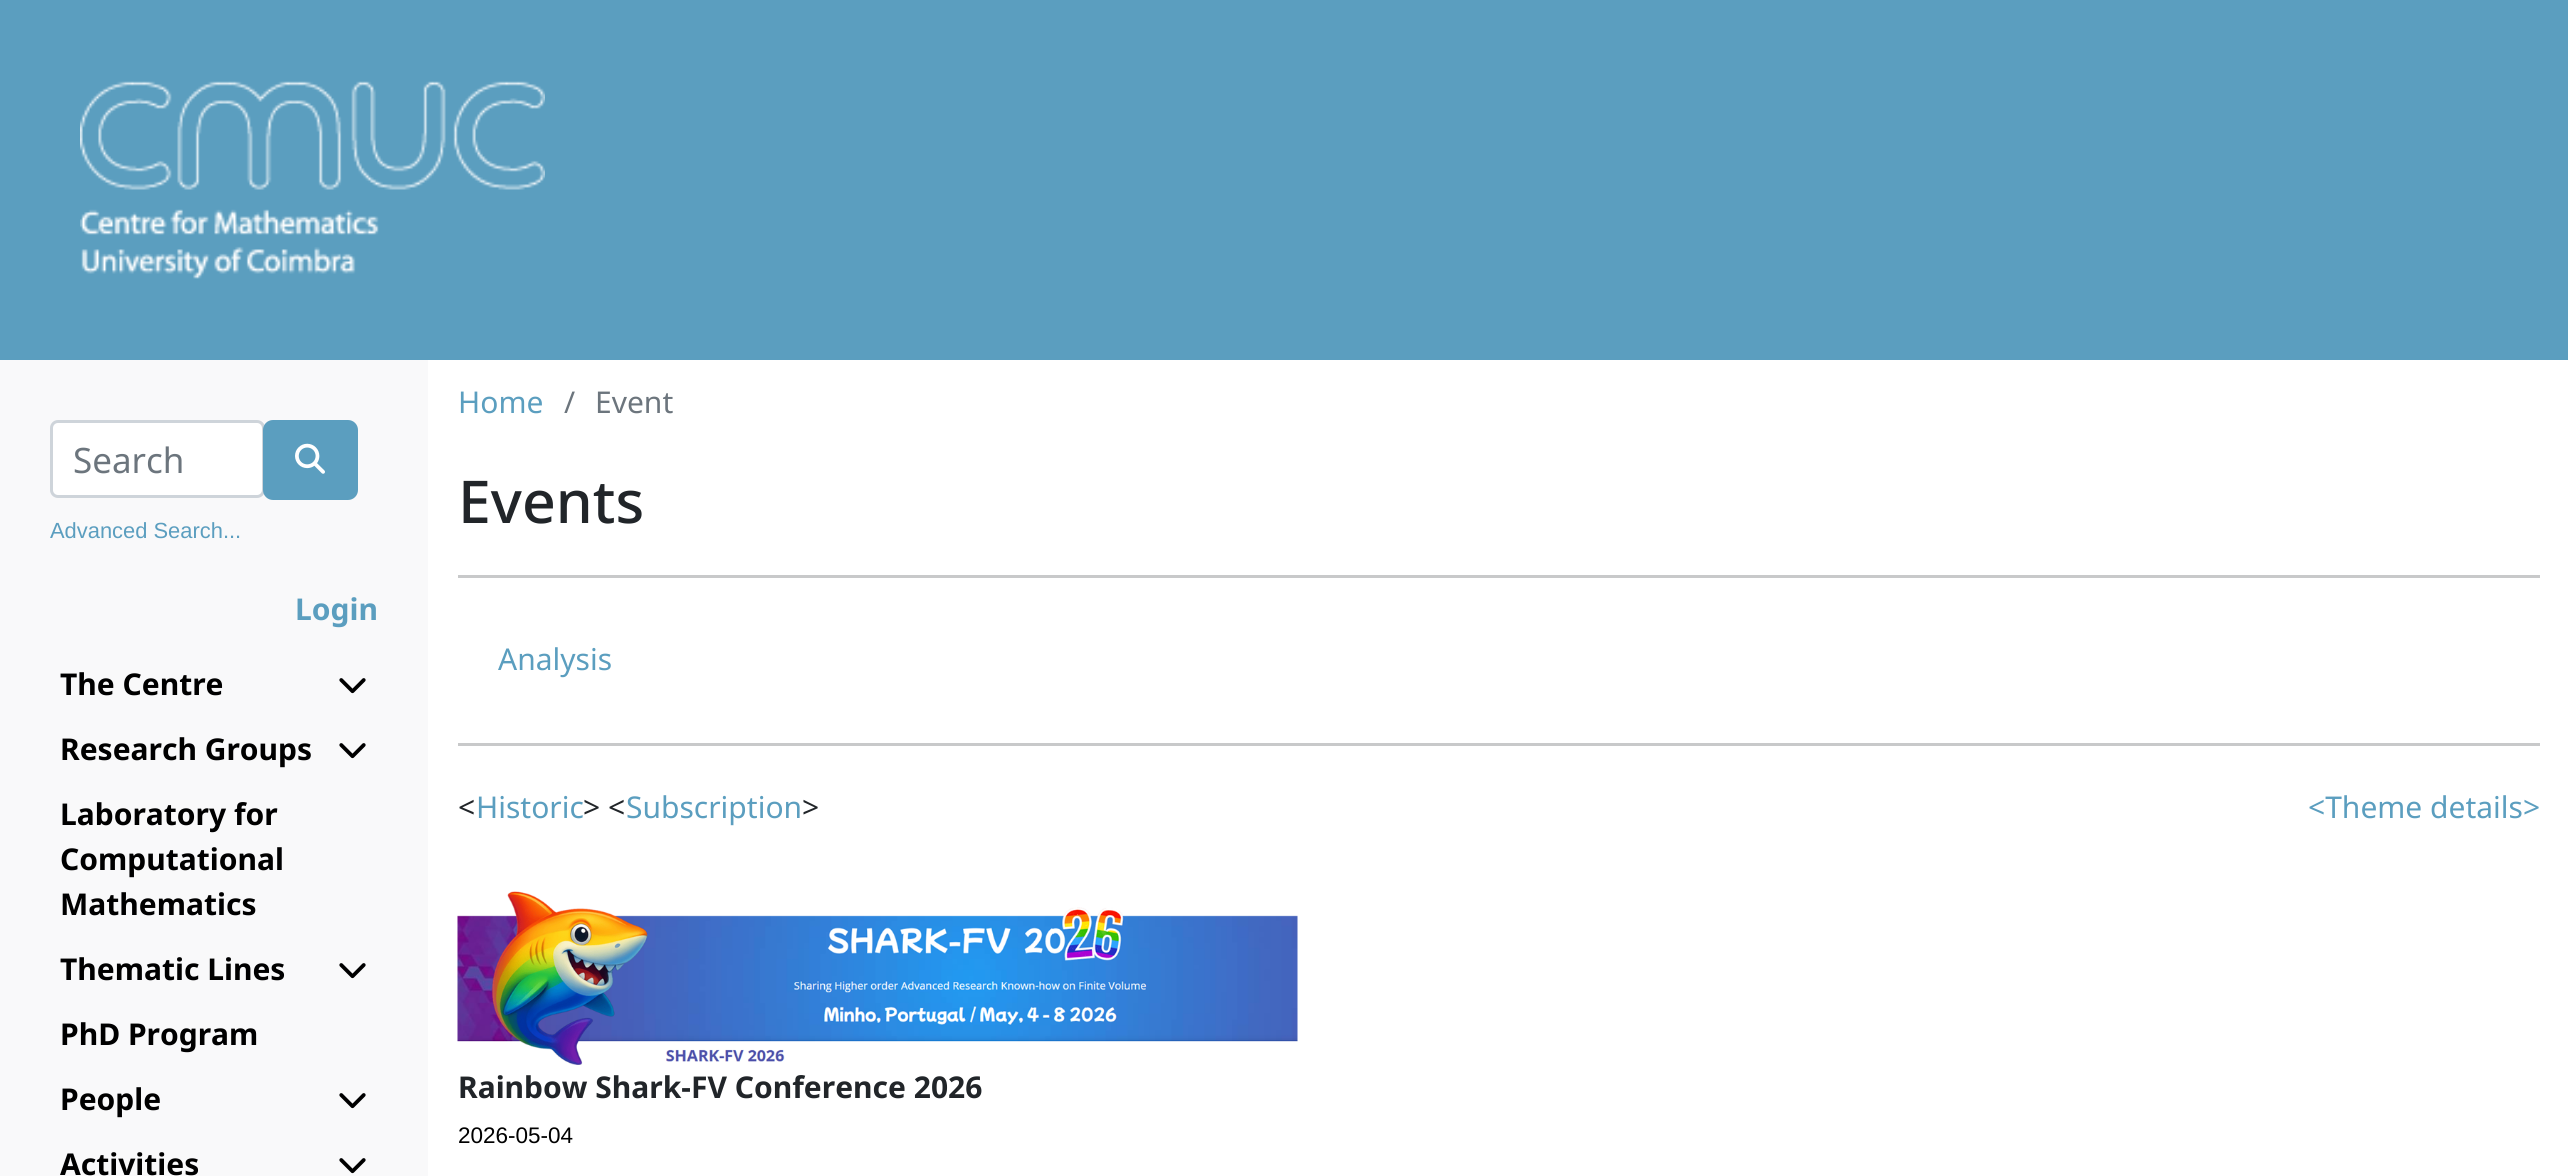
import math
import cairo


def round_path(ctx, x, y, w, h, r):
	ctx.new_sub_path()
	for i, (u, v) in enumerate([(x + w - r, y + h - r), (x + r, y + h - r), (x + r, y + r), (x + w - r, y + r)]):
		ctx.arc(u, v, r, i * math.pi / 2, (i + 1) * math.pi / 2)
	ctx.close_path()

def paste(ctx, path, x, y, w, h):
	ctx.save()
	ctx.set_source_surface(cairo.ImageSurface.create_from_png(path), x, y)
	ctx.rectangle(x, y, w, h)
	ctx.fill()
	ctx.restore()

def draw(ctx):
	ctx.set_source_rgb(1, 1, 1)
	ctx.paint()
	ctx.set_source_rgb(0.357, 0.62, 0.749)
	ctx.rectangle(0, 0, 2568, 360)
	ctx.fill()
	paste(ctx, 'media/1.png', 80, 81, 465, 198)
	ctx.set_source_rgb(0.973, 0.976, 0.98)
	ctx.rectangle(0, 360, 428, 816)
	ctx.fill()
	ctx.set_source_rgb(1, 1, 1)
	round_path(ctx, 51.5, 421.5, 212, 75, 6.5)
	ctx.fill_preserve()
	ctx.set_source_rgb(0.808, 0.831, 0.855)
	ctx.set_line_width(3)
	ctx.stroke()
	ctx.select_font_face('Noto Sans')
	ctx.set_font_size(35)
	ctx.set_source_rgb(0.424, 0.459, 0.49)
	ctx.move_to(73, 473)
	ctx.show_text('Search')
	ctx.set_source_rgb(0.357, 0.62, 0.749)
	round_path(ctx, 264.5, 421.5, 92, 77, 8.5)
	ctx.fill_preserve()
	ctx.stroke()
	paste(ctx, 'media/2.png', 295, 443, 30, 31)
	ctx.select_font_face('Liberation Sans')
	ctx.set_font_size(21.9)
	ctx.move_to(50, 538)
	ctx.show_text('Advanced Search...')
	ctx.select_font_face('Noto Sans', cairo.FONT_SLANT_NORMAL, cairo.FONT_WEIGHT_BOLD)
	ctx.set_font_size(30)
	ctx.move_to(295, 620)
	ctx.show_text('Login')
	ctx.set_source_rgb(0, 0, 0)
	ctx.move_to(60, 695)
	ctx.show_text('The Centre')
	paste(ctx, 'media/3.png', 339, 678, 27, 16)
	ctx.move_to(60, 760)
	ctx.show_text('Research Groups')
	paste(ctx, 'media/3.png', 339, 743, 27, 16)
	for x, y, s in [
		(60, 825, 'Laboratory for'),
		(60, 870, 'Computational'),
		(60, 915, 'Mathematics'),
		(60, 980, 'Thematic Lines'),
	]:
		ctx.move_to(x, y)
		ctx.show_text(s)
	paste(ctx, 'media/3.png', 339, 963, 27, 16)
	ctx.move_to(60, 1045)
	ctx.show_text('PhD Program')
	ctx.move_to(60, 1110)
	ctx.show_text('People')
	paste(ctx, 'media/3.png', 339, 1093, 27, 16)
	ctx.move_to(60, 1175)
	ctx.show_text('Activities')
	paste(ctx, 'media/3.png', 339, 1158, 27, 16)
	ctx.select_font_face('Noto Sans')
	ctx.set_source_rgb(0.357, 0.62, 0.749)
	ctx.move_to(458, 413)
	ctx.show_text('Home')
	ctx.set_source_rgb(0.424, 0.459, 0.49)
	ctx.move_to(564, 413)
	ctx.show_text('/')
	ctx.move_to(595, 413)
	ctx.show_text('Event')
	ctx.select_font_face('Noto Sans Medium')
	ctx.set_font_size(59)
	ctx.set_source_rgb(0.129, 0.145, 0.161)
	ctx.move_to(458, 523)
	ctx.show_text('Events')
	ctx.set_source_rgb(0.784, 0.788, 0.792)
	ctx.rectangle(458, 575, 2082, 3)
	ctx.fill()
	ctx.select_font_face('Noto Sans')
	ctx.set_font_size(30)
	ctx.set_source_rgb(0.357, 0.62, 0.749)
	ctx.move_to(498, 670)
	ctx.show_text('Analysis')
	ctx.set_source_rgb(0.784, 0.788, 0.792)
	ctx.rectangle(458, 743, 2082, 3)
	ctx.fill()
	ctx.set_source_rgb(0.129, 0.145, 0.161)
	ctx.move_to(458, 818)
	ctx.show_text('<')
	ctx.set_source_rgb(0.357, 0.62, 0.749)
	ctx.move_to(476, 818)
	ctx.show_text('Historic')
	ctx.set_source_rgb(0.129, 0.145, 0.161)
	ctx.move_to(583, 818)
	ctx.show_text('> <')
	ctx.set_source_rgb(0.357, 0.62, 0.749)
	ctx.move_to(626, 818)
	ctx.show_text('Subscription')
	ctx.set_source_rgb(0.129, 0.145, 0.161)
	ctx.move_to(802, 818)
	ctx.show_text('>')
	ctx.set_source_rgb(0.357, 0.62, 0.749)
	ctx.move_to(2308, 818)
	ctx.show_text('<Theme details>')
	paste(ctx, 'media/4.png', 457, 891, 841, 174)
	ctx.select_font_face('Noto Sans', cairo.FONT_SLANT_NORMAL, cairo.FONT_WEIGHT_BOLD)
	ctx.set_source_rgb(0.129, 0.145, 0.161)
	ctx.move_to(458, 1098)
	ctx.show_text('Rainbow Shark-FV Conference 2026')
	ctx.select_font_face('Liberation Sans')
	ctx.set_font_size(22.5)
	ctx.set_source_rgb(0, 0, 0)
	ctx.move_to(458, 1143)
	ctx.show_text('2026-05-04')


surface = cairo.ImageSurface(cairo.FORMAT_RGB24, 2568, 1176)
ctx = cairo.Context(surface)
options = cairo.FontOptions()
options.set_hint_metrics(cairo.HINT_METRICS_OFF)
options.set_hint_style(cairo.HINT_STYLE_NONE)
ctx.set_font_options(options)
ctx.set_miter_limit(4)
draw(ctx)
surface.write_to_png('image.png')
